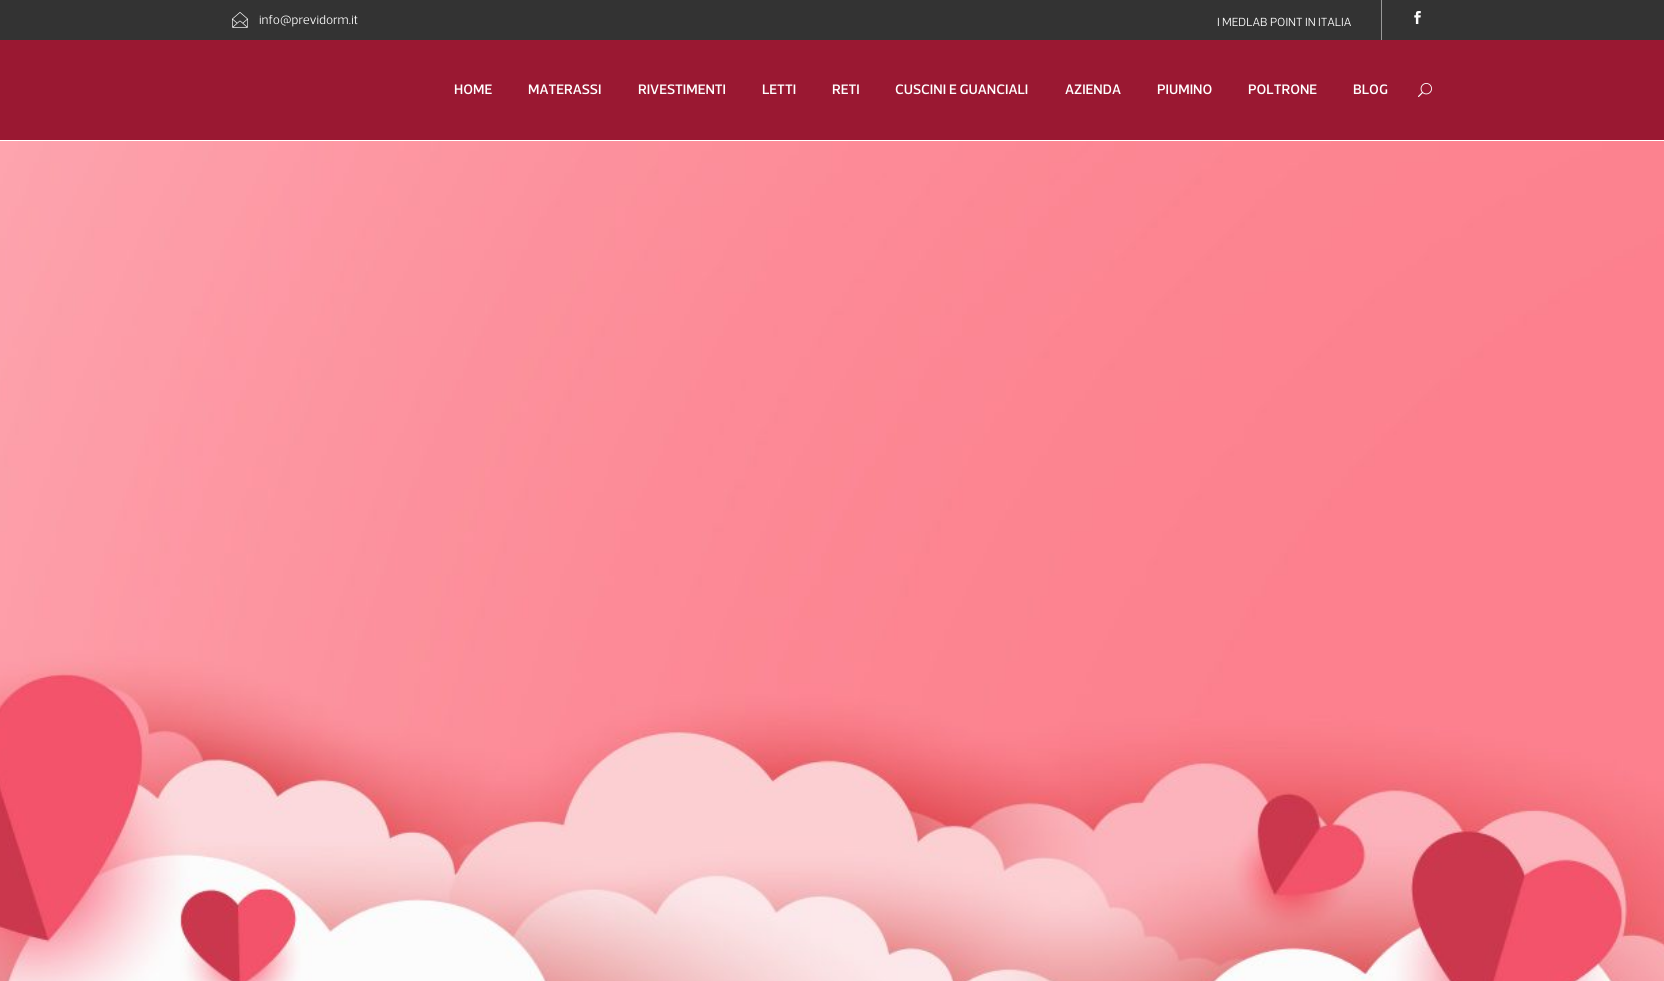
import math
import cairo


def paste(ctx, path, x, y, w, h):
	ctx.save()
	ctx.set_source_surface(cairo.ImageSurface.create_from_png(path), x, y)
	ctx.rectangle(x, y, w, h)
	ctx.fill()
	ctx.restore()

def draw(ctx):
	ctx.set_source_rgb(1, 1, 1)
	ctx.paint()
	ctx.set_source_rgb(0.604, 0.094, 0.196)
	ctx.rectangle(0, 40, 1664, 100)
	ctx.fill()
	ctx.set_source_rgb(0.2, 0.2, 0.2)
	ctx.rectangle(0, 0, 1664, 40)
	ctx.fill()
	paste(ctx, 'media/1.png', 232, 12, 16, 16)
	ctx.select_font_face('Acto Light')
	ctx.set_font_size(13)
	ctx.set_source_rgb(1, 1, 1)
	ctx.move_to(259, 24)
	ctx.show_text('info@previdorm.it')
	ctx.set_source_rgb(0.6, 0.6, 0.6)
	ctx.rectangle(1381, 0, 1, 40)
	ctx.fill()
	ctx.set_font_size(12)
	ctx.set_source_rgb(1, 1, 1)
	ctx.move_to(1217, 26)
	ctx.show_text('I MEDLAB POINT IN ITALIA')
	paste(ctx, 'media/2.png', 1414, 11, 7, 13)
	ctx.select_font_face('Acto Medium')
	ctx.set_font_size(14)
	for x, y, s in [
		(454, 94, 'HOME'),
		(528, 94, 'MATERASSI'),
		(638, 94, 'RIVESTIMENTI'),
		(762, 94, 'LETTI'),
		(832, 94, 'RETI'),
		(895, 94, 'CUSCINI E GUANCIALI'),
		(1065, 94, 'AZIENDA'),
		(1157, 94, 'PIUMINO'),
		(1248, 94, 'POLTRONE'),
		(1353, 94, 'BLOG'),
	]:
		ctx.move_to(x, y)
		ctx.show_text(s)
	paste(ctx, 'media/3.png', 1418, 83, 14, 14)
	paste(ctx, 'media/4.png', 0, 141, 1664, 840)


surface = cairo.ImageSurface(cairo.FORMAT_RGB24, 1664, 981)
ctx = cairo.Context(surface)
options = cairo.FontOptions()
options.set_hint_metrics(cairo.HINT_METRICS_OFF)
options.set_hint_style(cairo.HINT_STYLE_NONE)
ctx.set_font_options(options)
ctx.set_miter_limit(4)
draw(ctx)
surface.write_to_png('image.png')
